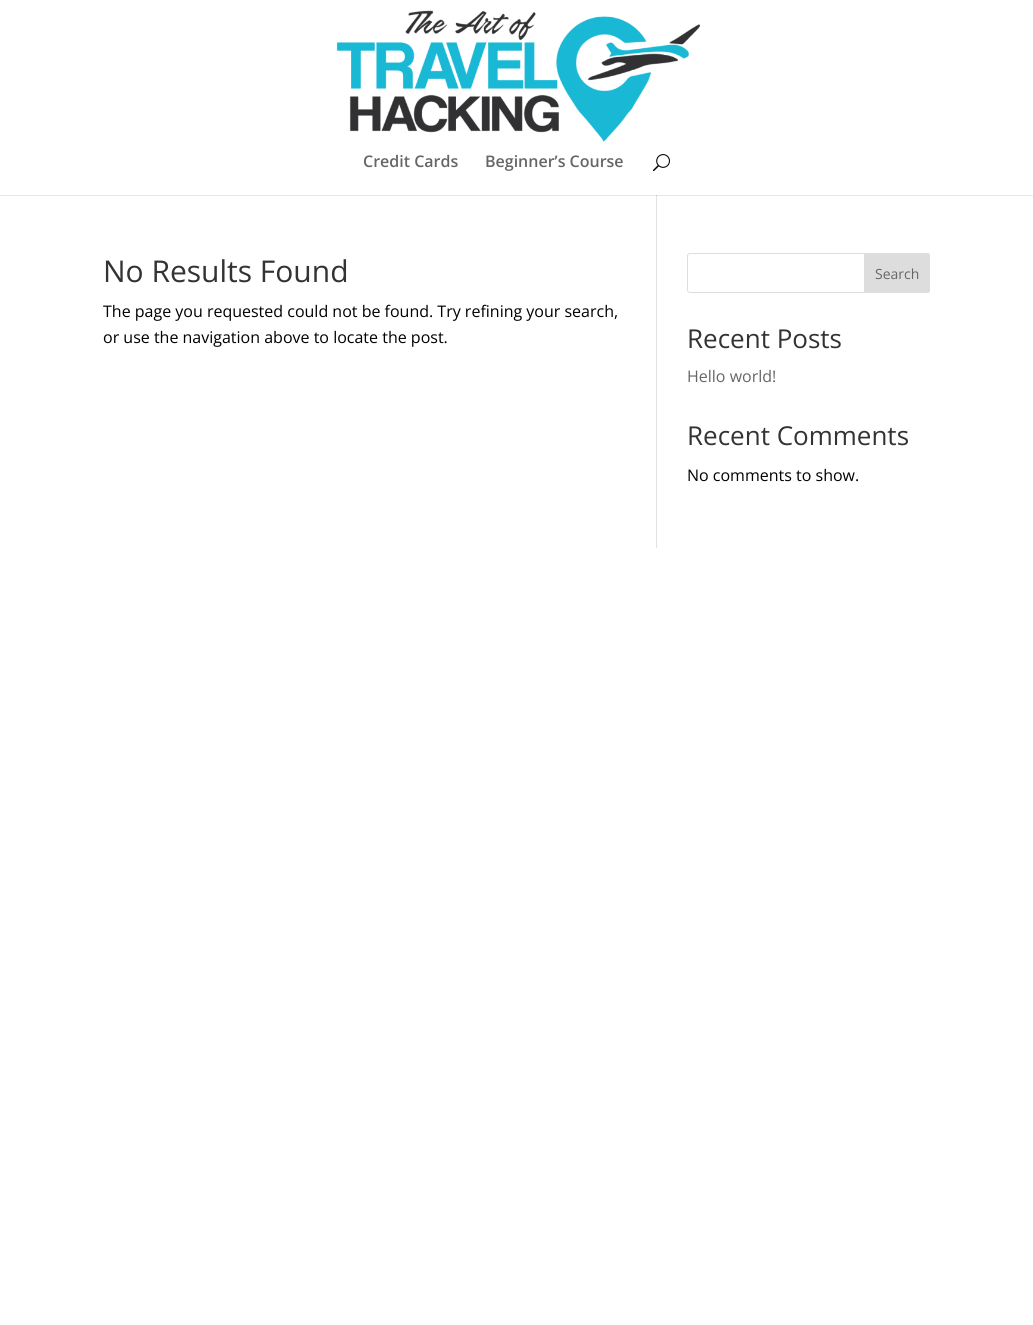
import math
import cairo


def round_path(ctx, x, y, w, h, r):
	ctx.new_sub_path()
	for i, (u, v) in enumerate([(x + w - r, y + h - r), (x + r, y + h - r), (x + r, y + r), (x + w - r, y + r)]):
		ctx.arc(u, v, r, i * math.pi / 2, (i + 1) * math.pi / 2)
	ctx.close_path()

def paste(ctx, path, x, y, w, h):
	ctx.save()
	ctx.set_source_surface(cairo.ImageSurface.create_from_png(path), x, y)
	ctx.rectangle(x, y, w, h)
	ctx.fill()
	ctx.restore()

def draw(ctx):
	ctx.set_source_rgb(1, 1, 1)
	ctx.paint()
	ctx.set_source_rgb(0.902, 0.902, 0.902)
	ctx.rectangle(0, 195, 1033, 1)
	ctx.fill()
	paste(ctx, 'media/1.png', 336, 10, 365, 132)
	ctx.select_font_face('Open Sans SemiBold')
	ctx.set_font_size(16)
	ctx.set_source_rgb(0.4, 0.4, 0.4)
	ctx.move_to(363, 167)
	ctx.show_text('Credit Cards')
	ctx.move_to(485, 167)
	ctx.show_text('Beginner’s Course')
	paste(ctx, 'media/2.png', 653, 154, 17, 18)
	ctx.set_source_rgb(0.886, 0.886, 0.886)
	ctx.rectangle(656, 195, 1, 353)
	ctx.fill()
	ctx.set_source_rgb(0.796, 0.796, 0.796)
	ctx.rectangle(656, 195, 1, 1)
	ctx.fill()
	ctx.select_font_face('Open Sans')
	ctx.set_font_size(30)
	ctx.set_source_rgb(0.2, 0.2, 0.2)
	ctx.move_to(103, 282)
	ctx.show_text('No Results Found')
	ctx.set_font_size(16)
	ctx.set_source_rgb(0, 0, 0)
	ctx.move_to(103, 317)
	ctx.show_text('The page you requested could not be found. Try refining your search,')
	ctx.move_to(103, 343)
	ctx.show_text('or use the navigation above to locate the post.')
	round_path(ctx, 687.5, 253.5, 242, 39, 2.5)
	ctx.set_source_rgb(0.867, 0.867, 0.867)
	ctx.set_line_width(1)
	ctx.stroke()
	ctx.new_path()
	ctx.move_to(864.5, 253.5)
	ctx.line_to(927, 253.5)
	ctx.curve_to(928.5, 253.5, 929.5, 254.5, 929.5, 256)
	ctx.line_to(929.5, 290)
	ctx.curve_to(929.5, 291.5, 928.5, 292.5, 927, 292.5)
	ctx.line_to(864.5, 292.5)
	ctx.close_path()
	ctx.fill_preserve()
	ctx.stroke()
	ctx.set_font_size(14)
	ctx.set_source_rgb(0.4, 0.4, 0.4)
	ctx.move_to(875, 279)
	ctx.show_text('Search')
	ctx.set_font_size(26)
	ctx.set_source_rgb(0.2, 0.2, 0.2)
	ctx.move_to(687, 348)
	ctx.show_text('Recent Posts')
	ctx.set_font_size(16)
	ctx.set_source_rgb(0.4, 0.4, 0.4)
	ctx.move_to(687, 382)
	ctx.show_text('Hello world!')
	ctx.set_font_size(26)
	ctx.set_source_rgb(0.2, 0.2, 0.2)
	ctx.move_to(687, 445)
	ctx.show_text('Recent Comments')
	ctx.set_font_size(16)
	ctx.set_source_rgb(0, 0, 0)
	ctx.move_to(687, 481)
	ctx.show_text('No comments to show.')


surface = cairo.ImageSurface(cairo.FORMAT_RGB24, 1033, 1325)
ctx = cairo.Context(surface)
options = cairo.FontOptions()
options.set_hint_metrics(cairo.HINT_METRICS_OFF)
options.set_hint_style(cairo.HINT_STYLE_NONE)
ctx.set_font_options(options)
ctx.set_miter_limit(4)
draw(ctx)
surface.write_to_png('image.png')
